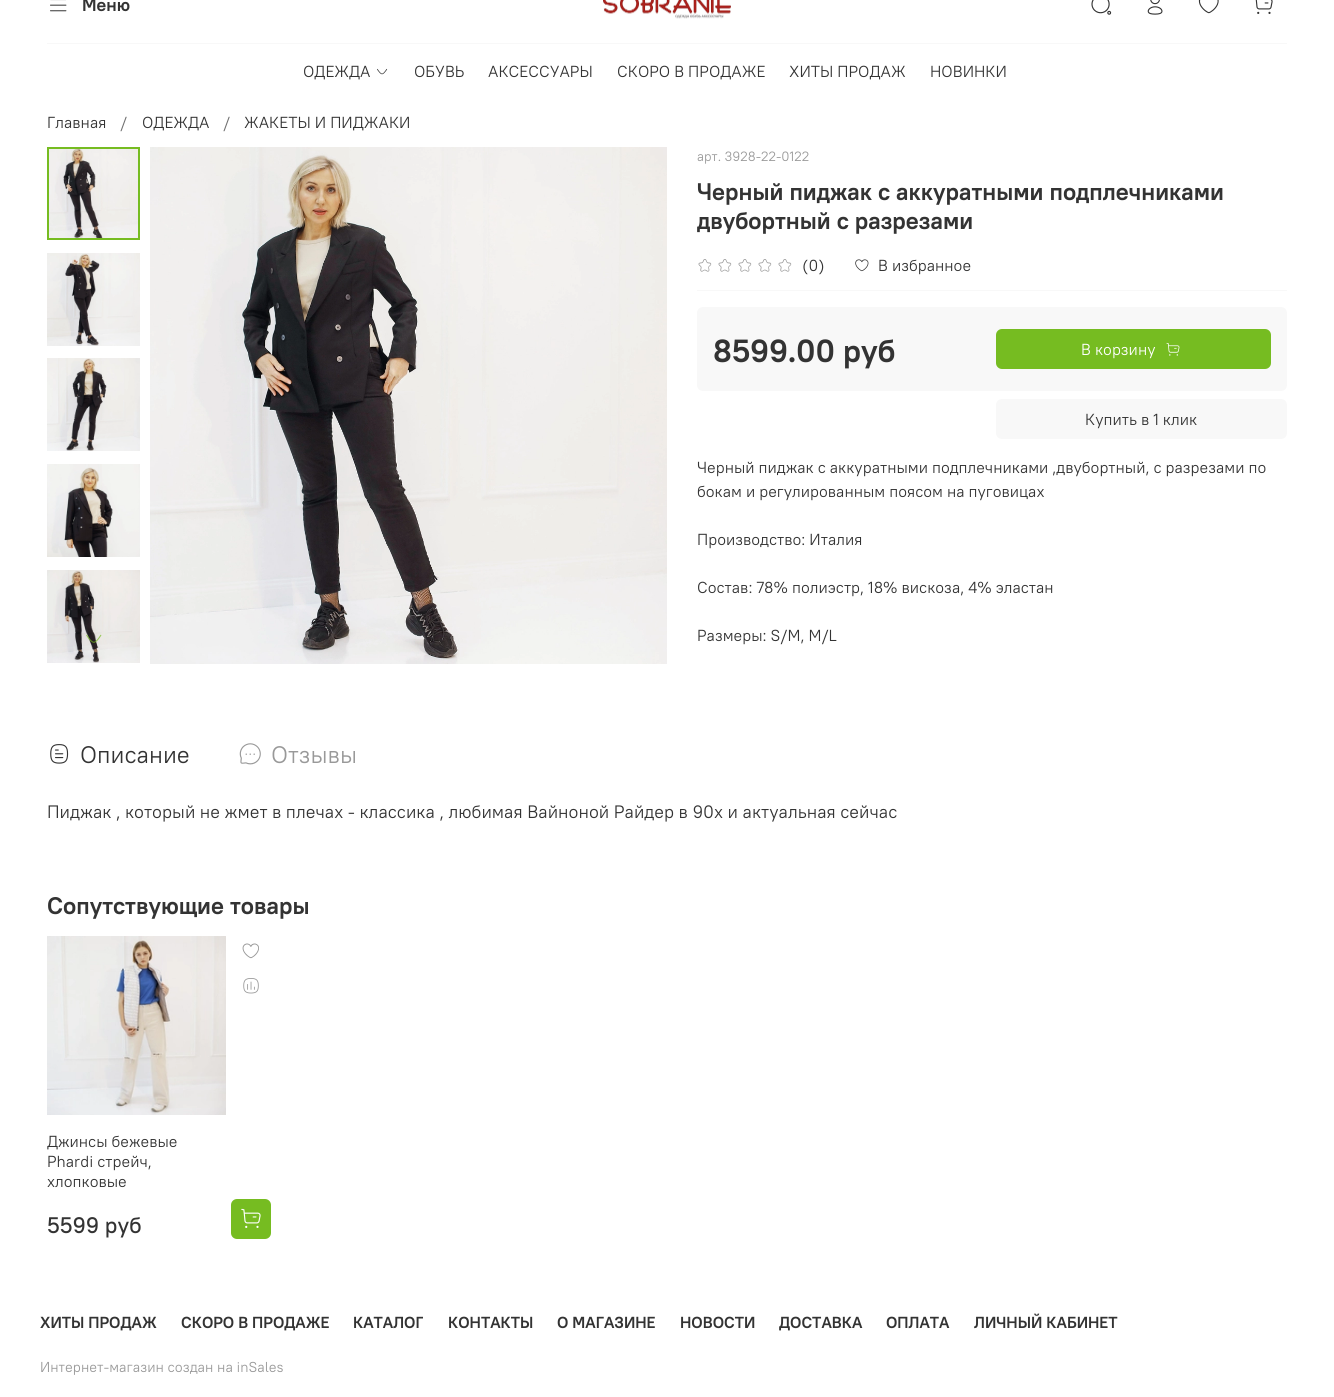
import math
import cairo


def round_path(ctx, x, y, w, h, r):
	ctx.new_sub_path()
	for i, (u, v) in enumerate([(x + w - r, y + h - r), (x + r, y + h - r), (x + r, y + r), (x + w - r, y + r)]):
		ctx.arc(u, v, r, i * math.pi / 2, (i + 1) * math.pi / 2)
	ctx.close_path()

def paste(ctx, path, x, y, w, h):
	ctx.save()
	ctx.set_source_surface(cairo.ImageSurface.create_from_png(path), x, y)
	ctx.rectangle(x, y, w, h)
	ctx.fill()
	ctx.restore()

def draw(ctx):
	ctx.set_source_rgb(1, 1, 1)
	ctx.paint()
	paste(ctx, 'media/1.png', 50, 0, 17, 12)
	ctx.select_font_face('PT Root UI', cairo.FONT_SLANT_NORMAL, cairo.FONT_WEIGHT_BOLD)
	ctx.set_font_size(18)
	ctx.set_source_rgb(0.2, 0.2, 0.2)
	ctx.move_to(82, 11)
	ctx.show_text('Меню')
	paste(ctx, 'media/2.png', 603, 0, 128, 19)
	paste(ctx, 'media/3.png', 1091, 0, 21, 15)
	paste(ctx, 'media/4.png', 1147, 0, 16, 15)
	paste(ctx, 'media/5.png', 1198, 0, 21, 14)
	paste(ctx, 'media/6.png', 1255, 0, 18, 14)
	ctx.set_source_rgb(0.969, 0.969, 0.969)
	ctx.rectangle(47, 43, 1240, 1)
	ctx.fill()
	ctx.select_font_face('PT Root UI')
	ctx.set_font_size(16)
	ctx.set_source_rgb(0.2, 0.2, 0.2)
	ctx.move_to(303, 77)
	ctx.show_text('ОДЕЖДА')
	paste(ctx, 'media/7.png', 377, 68, 11, 7)
	for x, y, s in [
		(414, 77, 'ОБУВЬ'),
		(488, 77, 'АКСЕССУАРЫ'),
		(617, 77, 'СКОРО В ПРОДАЖЕ'),
		(789, 77, 'ХИТЫ ПРОДАЖ'),
		(930, 77, 'НОВИНКИ'),
		(47, 128, 'Главная'),
	]:
		ctx.move_to(x, y)
		ctx.show_text(s)
	ctx.set_source_rgb(0.439, 0.439, 0.439)
	ctx.move_to(120, 128)
	ctx.show_text('/')
	ctx.set_source_rgb(0.2, 0.2, 0.2)
	ctx.move_to(142, 128)
	ctx.show_text('ОДЕЖДА')
	ctx.set_source_rgb(0.439, 0.439, 0.439)
	ctx.move_to(223, 128)
	ctx.show_text('/')
	ctx.set_source_rgb(0.2, 0.2, 0.2)
	ctx.move_to(244, 128)
	ctx.show_text('ЖАКЕТЫ И ПИДЖАКИ')
	paste(ctx, 'media/8.png', 49, 149, 89, 89)
	ctx.rectangle(48, 148, 91, 91)
	ctx.set_source_rgb(0.463, 0.737, 0.129)
	ctx.stroke()
	paste(ctx, 'media/9.png', 47, 253, 93, 93)
	paste(ctx, 'media/10.png', 47, 358, 93, 93)
	paste(ctx, 'media/11.png', 47, 464, 93, 93)
	paste(ctx, 'media/12.png', 47, 570, 93, 93)
	paste(ctx, 'media/13.png', 86, 634, 16, 9)
	paste(ctx, 'media/14.png', 150, 147, 517, 517)
	ctx.set_font_size(13.5)
	ctx.set_source_rgb(0.6, 0.6, 0.6)
	ctx.move_to(697, 161)
	ctx.show_text('арт. 3928-22-0122')
	ctx.select_font_face('PT Root UI', cairo.FONT_SLANT_NORMAL, cairo.FONT_WEIGHT_BOLD)
	ctx.set_font_size(24)
	ctx.set_source_rgb(0.2, 0.2, 0.2)
	ctx.move_to(697, 200)
	ctx.show_text('Черный пиджак с аккуратными подплечниками')
	ctx.move_to(697, 229)
	ctx.show_text('двубортный с разрезами')
	ctx.set_source_rgb(0.969, 0.969, 0.969)
	ctx.rectangle(697, 290, 590, 1)
	ctx.fill()
	paste(ctx, 'media/15.png', 698, 259, 14, 13)
	paste(ctx, 'media/15.png', 718, 259, 14, 13)
	paste(ctx, 'media/15.png', 738, 259, 14, 13)
	paste(ctx, 'media/15.png', 758, 259, 14, 13)
	paste(ctx, 'media/15.png', 778, 259, 14, 13)
	ctx.select_font_face('PT Root UI')
	ctx.set_font_size(16)
	ctx.set_source_rgb(0.2, 0.2, 0.2)
	ctx.move_to(802, 271)
	ctx.show_text('(0)')
	paste(ctx, 'media/16.png', 855, 259, 14, 13)
	ctx.move_to(878, 271)
	ctx.show_text('В избранное')
	ctx.set_source_rgb(0.969, 0.969, 0.969)
	round_path(ctx, 697, 307, 590, 84, 6)
	ctx.fill()
	ctx.select_font_face('PT Root UI', cairo.FONT_SLANT_NORMAL, cairo.FONT_WEIGHT_BOLD)
	ctx.set_font_size(32)
	ctx.set_source_rgb(0.2, 0.2, 0.2)
	ctx.move_to(713, 362)
	ctx.show_text('8599.00 руб')
	ctx.set_source_rgb(0.463, 0.737, 0.129)
	round_path(ctx, 996, 329, 275, 40, 6)
	ctx.fill()
	ctx.select_font_face('PT Root UI')
	ctx.set_font_size(16)
	ctx.set_source_rgb(1, 1, 1)
	ctx.move_to(1081, 355)
	ctx.show_text('В корзину')
	paste(ctx, 'media/17.png', 1166, 342, 14, 14)
	ctx.set_source_rgb(0.969, 0.969, 0.969)
	round_path(ctx, 996, 399, 291, 40, 6)
	ctx.fill()
	ctx.set_source_rgb(0.2, 0.2, 0.2)
	for x, y, s in [
		(1085, 425, 'Купить в 1 клик'),
		(697, 473, 'Черный пиджак с аккуратными подплечниками ,двубортный, с разрезами по'),
		(697, 497, 'бокам и регулированным поясом на пуговицах'),
		(697, 545, 'Производство: Италия'),
		(697, 593, 'Состав: 78% полиэстр, 18% вискоза, 4% эластан'),
		(697, 641, 'Размеры: S/M, M/L'),
	]:
		ctx.move_to(x, y)
		ctx.show_text(s)
	paste(ctx, 'media/18.png', 50, 744, 19, 20)
	ctx.set_font_size(24)
	ctx.move_to(80, 763)
	ctx.show_text('Описание')
	paste(ctx, 'media/19.png', 239, 743, 22, 22)
	ctx.set_source_rgb(0.6, 0.6, 0.6)
	ctx.move_to(271, 763)
	ctx.show_text('Отзывы')
	ctx.set_font_size(18)
	ctx.set_source_rgb(0.2, 0.2, 0.2)
	ctx.move_to(47, 818)
	ctx.show_text('Пиджак , который не жмет в плечах - классика , любимая Вайноной Райдер в 90х и актуальная сейчас')
	ctx.select_font_face('PT Root UI', cairo.FONT_SLANT_NORMAL, cairo.FONT_WEIGHT_BOLD)
	ctx.set_font_size(24)
	ctx.move_to(47, 914)
	ctx.show_text('Сопутствующие товары')
	paste(ctx, 'media/20.png', 47, 936, 179, 179)
	ctx.select_font_face('PT Root UI')
	ctx.set_font_size(16)
	for x, y, s in [
		(47, 1147, 'Джинсы бежевые'),
		(47, 1167, 'Phardi стрейч,'),
		(47, 1187, 'хлопковые'),
	]:
		ctx.move_to(x, y)
		ctx.show_text(s)
	ctx.select_font_face('PT Root UI Medium')
	ctx.set_font_size(22.5)
	ctx.move_to(47, 1233)
	ctx.show_text('5599 руб')
	paste(ctx, 'media/21.png', 242, 943, 17, 16)
	paste(ctx, 'media/22.png', 243, 978, 16, 16)
	ctx.set_source_rgb(0.463, 0.737, 0.129)
	round_path(ctx, 231, 1199, 40, 40, 6)
	ctx.fill()
	paste(ctx, 'media/23.png', 241, 1208, 20, 20)
	ctx.select_font_face('PT Root UI', cairo.FONT_SLANT_NORMAL, cairo.FONT_WEIGHT_BOLD)
	ctx.set_font_size(16)
	ctx.set_source_rgb(0.2, 0.2, 0.2)
	for x, y, s in [
		(40, 1328, 'ХИТЫ ПРОДАЖ'),
		(181, 1328, 'СКОРО В ПРОДАЖЕ'),
		(353, 1328, 'КАТАЛОГ'),
		(448, 1328, 'КОНТАКТЫ'),
		(557, 1328, 'О МАГАЗИНЕ'),
		(680, 1328, 'НОВОСТИ'),
		(779, 1328, 'ДОСТАВКА'),
		(886, 1328, 'ОПЛАТА'),
		(974, 1328, 'ЛИЧНЫЙ КАБИНЕТ'),
	]:
		ctx.move_to(x, y)
		ctx.show_text(s)
	ctx.select_font_face('PT Root UI')
	ctx.set_font_size(14.4)
	ctx.set_source_rgb(0.6, 0.6, 0.6)
	ctx.move_to(40, 1372)
	ctx.show_text('Интернет-магазин создан на inSales')


surface = cairo.ImageSurface(cairo.FORMAT_RGB24, 1334, 1397)
ctx = cairo.Context(surface)
options = cairo.FontOptions()
options.set_hint_metrics(cairo.HINT_METRICS_OFF)
options.set_hint_style(cairo.HINT_STYLE_NONE)
ctx.set_font_options(options)
ctx.set_miter_limit(4)
draw(ctx)
surface.write_to_png('image.png')
